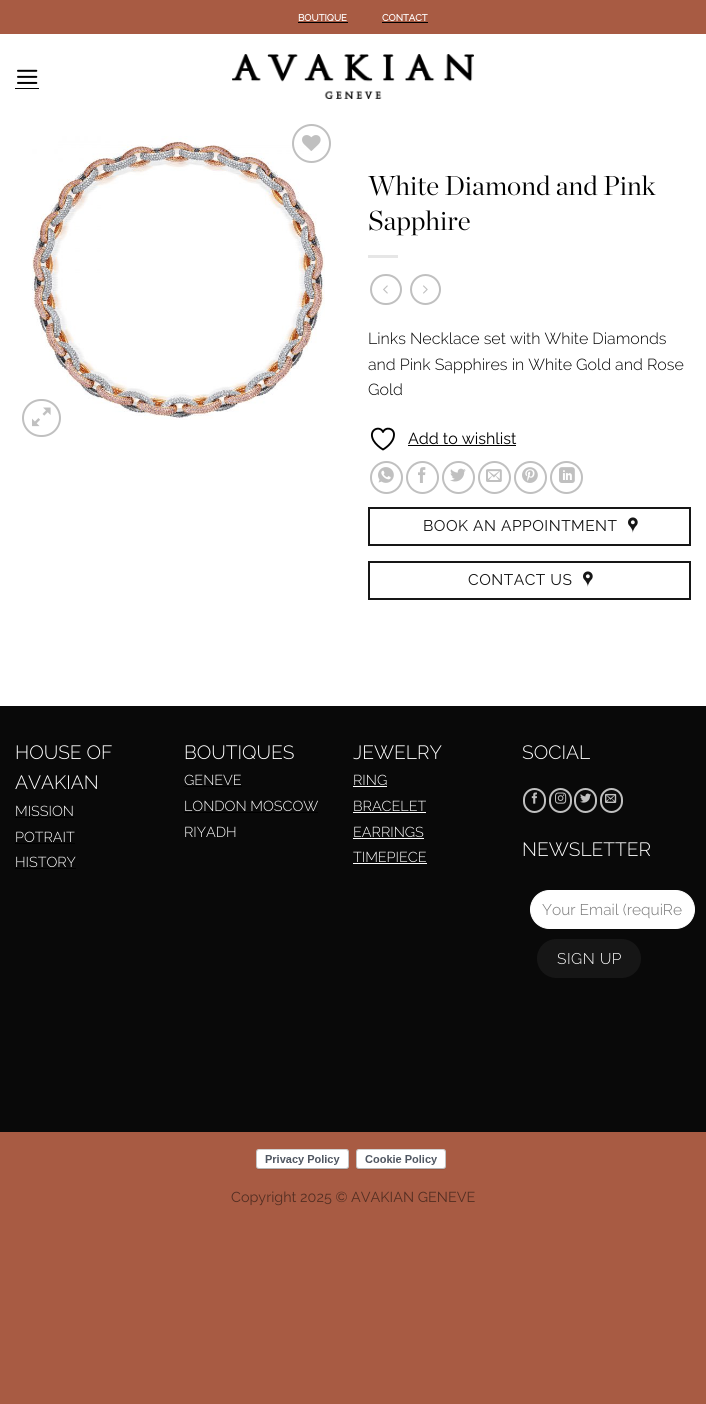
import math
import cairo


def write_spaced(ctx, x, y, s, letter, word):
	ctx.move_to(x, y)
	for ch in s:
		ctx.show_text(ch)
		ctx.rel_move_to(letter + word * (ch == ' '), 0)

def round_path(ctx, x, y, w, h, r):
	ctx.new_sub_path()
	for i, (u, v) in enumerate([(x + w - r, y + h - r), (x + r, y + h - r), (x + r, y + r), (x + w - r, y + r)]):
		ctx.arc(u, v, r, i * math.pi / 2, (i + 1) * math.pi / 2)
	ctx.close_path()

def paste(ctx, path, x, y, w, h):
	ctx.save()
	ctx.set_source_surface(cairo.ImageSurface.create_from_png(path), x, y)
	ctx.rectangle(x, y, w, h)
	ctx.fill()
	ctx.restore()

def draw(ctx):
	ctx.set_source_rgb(0.659, 0.357, 0.263)
	ctx.paint()
	ctx.set_source_rgb(1, 1, 1)
	ctx.rectangle(0, 34, 706, 672)
	ctx.fill()
	ctx.select_font_face('Raleway', cairo.FONT_SLANT_NORMAL, cairo.FONT_WEIGHT_BOLD)
	ctx.set_font_size(9.5)
	ctx.move_to(298, 21)
	ctx.show_text('BOUTIQUE')
	ctx.set_source_rgb(0, 0, 0)
	ctx.rectangle(298, 22, 50, 1)
	ctx.fill()
	ctx.set_source_rgb(1, 1, 1)
	ctx.move_to(382, 21)
	ctx.show_text('CONTACT')
	ctx.set_source_rgb(0, 0, 0)
	ctx.rectangle(382, 22, 46, 1)
	ctx.fill()
	paste(ctx, 'media/1.png', 17, 69, 21, 15)
	ctx.rectangle(15, 88, 24, 1)
	ctx.fill()
	paste(ctx, 'media/2.png', 232, 54, 242, 45)
	paste(ctx, 'media/4.png', 32, 136, 293, 284)
	ctx.arc(311.5, 143.5, 18.5, 0, 2 * math.pi)
	ctx.set_source_rgb(0.753, 0.753, 0.753)
	ctx.stroke()
	paste(ctx, 'media/3.png', 302, 135, 19, 16)
	round_path(ctx, 23, 400, 37, 36, 18)
	ctx.stroke()
	paste(ctx, 'media/5.png', 32, 407, 19, 20)
	ctx.select_font_face('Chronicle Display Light')
	ctx.set_font_size(27.25)
	ctx.set_source_rgb(0, 0, 0)
	ctx.move_to(368, 195)
	ctx.show_text('White Diamond and Pink')
	ctx.move_to(368, 230)
	ctx.show_text('Sapphire')
	ctx.set_source_rgb(0.902, 0.902, 0.902)
	ctx.rectangle(368, 255, 30, 3)
	ctx.fill()
	round_path(ctx, 371, 275, 30, 29, 14.5)
	ctx.set_source_rgb(0.753, 0.753, 0.753)
	ctx.stroke()
	paste(ctx, 'media/6.png', 383, 285, 5, 9)
	ctx.arc(425.5, 289.5, 14.5, 0, 2 * math.pi)
	ctx.stroke()
	paste(ctx, 'media/7.png', 423, 285, 5, 9)
	ctx.select_font_face('Raleway Light')
	ctx.set_font_size(16)
	ctx.set_source_rgb(0, 0, 0)
	for x, y, s in [
		(368, 344, 'Links Necklace set with White Diamonds'),
		(368, 370, 'and Pink Sapphires in White Gold and Rose'),
		(368, 395, 'Gold'),
	]:
		ctx.move_to(x, y)
		ctx.show_text(s)
	ctx.new_path()
	ctx.move_to(394, 434.5)
	ctx.curve_to(394, 428, 385.5, 426.5, 383, 432)
	ctx.curve_to(380, 425, 367.5, 429.5, 373.5, 440.5)
	ctx.curve_to(375.5, 444, 379.5, 447.5, 383, 449.5)
	ctx.curve_to(383, 449.5, 394, 443.5, 394, 434.5)
	ctx.close_path()
	ctx.set_line_width(1.9)
	ctx.set_line_cap(cairo.LINE_CAP_ROUND)
	ctx.set_line_join(cairo.LINE_JOIN_ROUND)
	ctx.stroke()
	ctx.select_font_face('Raleway')
	ctx.move_to(408, 444)
	ctx.show_text('Add to wishlist')
	ctx.rectangle(408, 445, 108, 1)
	ctx.fill()
	ctx.arc(386.5, 477.5, 15.5, 0, 2 * math.pi)
	ctx.set_source_rgb(0.753, 0.753, 0.753)
	ctx.set_line_width(2)
	ctx.set_line_cap(cairo.LINE_CAP_BUTT)
	ctx.set_line_join(cairo.LINE_JOIN_MITER)
	ctx.stroke()
	paste(ctx, 'media/8.png', 378, 467, 16, 16)
	ctx.arc(422.5, 477.5, 15.5, 0, 2 * math.pi)
	ctx.stroke()
	paste(ctx, 'media/9.png', 418, 467, 8, 16)
	ctx.arc(458.5, 477.5, 15.5, 0, 2 * math.pi)
	ctx.stroke()
	paste(ctx, 'media/10.png', 450, 468, 16, 14)
	ctx.arc(494.5, 477.5, 15.5, 0, 2 * math.pi)
	ctx.stroke()
	paste(ctx, 'media/11.png', 486, 469, 16, 13)
	ctx.arc(530.5, 477.5, 15.5, 0, 2 * math.pi)
	ctx.stroke()
	paste(ctx, 'media/12.png', 522, 467, 16, 16)
	ctx.arc(566.5, 477.5, 15.5, 0, 2 * math.pi)
	ctx.stroke()
	paste(ctx, 'media/13.png', 559, 467, 16, 16)
	ctx.rectangle(369, 508, 321, 37)
	ctx.set_source_rgb(0.086, 0.086, 0.086)
	ctx.stroke()
	ctx.set_font_size(15.5)
	write_spaced(ctx, 423, 531, 'BOOK AN APPOINTMENT', 0.5, 0)
	paste(ctx, 'media/14.png', 628, 517, 10, 16)
	ctx.rectangle(369, 562, 321, 37)
	ctx.stroke()
	write_spaced(ctx, 468, 585, 'CONTACT US', 0.5, 0)
	paste(ctx, 'media/14.png', 583, 571, 10, 16)
	ctx.set_source_rgb(0.039, 0.039, 0.039)
	ctx.rectangle(0, 706, 706, 426)
	ctx.fill()
	ctx.select_font_face('Raleway Light')
	ctx.set_font_size(19.25)
	ctx.set_source_rgb(1, 1, 1)
	ctx.move_to(15, 759)
	ctx.show_text('HOUSE OF')
	ctx.move_to(15, 789)
	ctx.show_text('AVAKIAN')
	ctx.set_font_size(14.4)
	ctx.move_to(15, 816)
	ctx.show_text('MISSION')
	ctx.set_source_rgb(0, 0, 0)
	ctx.rectangle(15, 817, 59, 1)
	ctx.fill()
	ctx.set_source_rgb(1, 1, 1)
	ctx.move_to(15, 842)
	ctx.show_text('POTRAIT')
	ctx.set_source_rgb(0, 0, 0)
	ctx.rectangle(15, 843, 60, 1)
	ctx.fill()
	ctx.set_source_rgb(1, 1, 1)
	ctx.move_to(15, 867)
	ctx.show_text('HISTORY')
	ctx.set_source_rgb(0, 0, 0)
	ctx.rectangle(15, 868, 61, 1)
	ctx.fill()
	ctx.set_font_size(19.25)
	ctx.set_source_rgb(1, 1, 1)
	ctx.move_to(184, 759)
	ctx.show_text('BOUTIQUES')
	ctx.set_font_size(14.4)
	ctx.move_to(184, 785)
	ctx.show_text('GENEVE')
	ctx.set_source_rgb(0, 0, 0)
	ctx.rectangle(184, 786, 58, 1)
	ctx.fill()
	ctx.set_source_rgb(1, 1, 1)
	ctx.move_to(184, 811)
	ctx.show_text('LONDON MOSCOW')
	ctx.set_source_rgb(0, 0, 0)
	ctx.rectangle(184, 812, 134, 1)
	ctx.fill()
	ctx.set_source_rgb(1, 1, 1)
	ctx.move_to(184, 837)
	ctx.show_text('RIYADH')
	ctx.set_font_size(19.25)
	ctx.move_to(353, 759)
	ctx.show_text('JEWELRY')
	ctx.set_font_size(14.4)
	ctx.move_to(353, 785)
	ctx.show_text('RING')
	ctx.rectangle(353, 786, 34, 1)
	ctx.fill()
	ctx.move_to(353, 811)
	ctx.show_text('BRACELET')
	ctx.rectangle(353, 812, 73, 1)
	ctx.fill()
	ctx.move_to(353, 837)
	ctx.show_text('EARRINGS')
	ctx.rectangle(353, 838, 71, 1)
	ctx.fill()
	ctx.move_to(353, 862)
	ctx.show_text('TIMEPIECE')
	ctx.rectangle(353, 863, 74, 1)
	ctx.fill()
	ctx.set_font_size(19.25)
	ctx.move_to(522, 759)
	ctx.show_text('SOCIAL')
	round_path(ctx, 524, 789, 21, 23, 10.5)
	ctx.set_source_rgb(0.753, 0.753, 0.753)
	ctx.stroke()
	paste(ctx, 'media/15.png', 531, 792, 6, 12)
	round_path(ctx, 550, 789, 21, 23, 10.5)
	ctx.stroke()
	paste(ctx, 'media/16.png', 555, 792, 12, 12)
	round_path(ctx, 575, 789, 21, 23, 10.5)
	ctx.stroke()
	paste(ctx, 'media/17.png', 580, 793, 11, 10)
	round_path(ctx, 601, 789, 21, 23, 10.5)
	ctx.stroke()
	paste(ctx, 'media/18.png', 605, 793, 12, 10)
	ctx.set_source_rgb(1, 1, 1)
	ctx.move_to(522, 856)
	ctx.show_text('NEWSLETTER')
	round_path(ctx, 530.5, 890.5, 164, 38, 19)
	ctx.fill_preserve()
	ctx.set_line_width(1)
	ctx.stroke()
	ctx.set_font_size(15.5)
	ctx.set_source_rgb(0.459, 0.459, 0.459)
	ctx.move_to(542, 915)
	ctx.show_text('Your Email (requiRe')
	ctx.set_source_rgb(0.086, 0.086, 0.086)
	round_path(ctx, 537, 939, 104, 39, 19.5)
	ctx.fill()
	ctx.set_source_rgb(1, 1, 1)
	write_spaced(ctx, 557, 964, 'SIGN UP', 0.5, 0)
	paste(ctx, 'media/19.png', 256, 1149, 93, 21)
	paste(ctx, 'media/20.png', 356, 1149, 90, 21)
	ctx.select_font_face('Raleway')
	ctx.set_font_size(14.4)
	ctx.set_source_rgb(0.329, 0.18, 0.133)
	ctx.move_to(231, 1202)
	ctx.show_text('Copyright 2025 © AVAKIAN GENEVE')


surface = cairo.ImageSurface(cairo.FORMAT_RGB24, 706, 1404)
ctx = cairo.Context(surface)
options = cairo.FontOptions()
options.set_hint_metrics(cairo.HINT_METRICS_OFF)
options.set_hint_style(cairo.HINT_STYLE_NONE)
ctx.set_font_options(options)
ctx.set_miter_limit(4)
draw(ctx)
surface.write_to_png('image.png')
